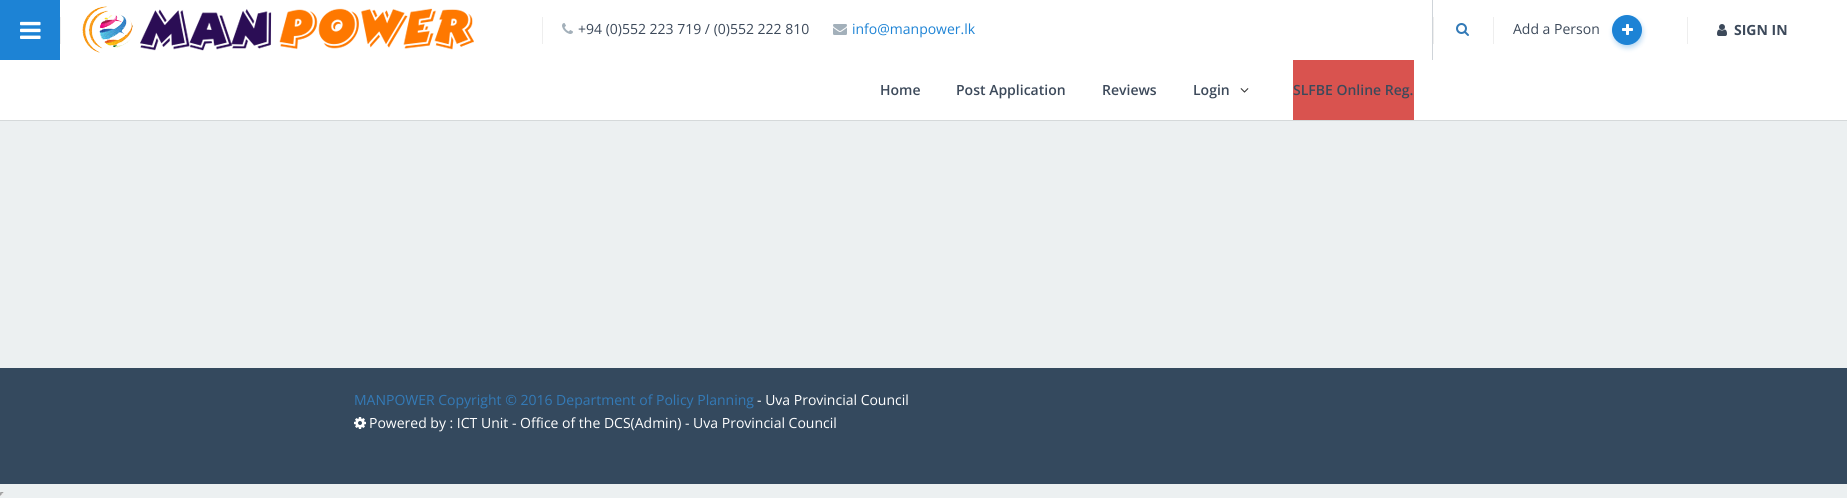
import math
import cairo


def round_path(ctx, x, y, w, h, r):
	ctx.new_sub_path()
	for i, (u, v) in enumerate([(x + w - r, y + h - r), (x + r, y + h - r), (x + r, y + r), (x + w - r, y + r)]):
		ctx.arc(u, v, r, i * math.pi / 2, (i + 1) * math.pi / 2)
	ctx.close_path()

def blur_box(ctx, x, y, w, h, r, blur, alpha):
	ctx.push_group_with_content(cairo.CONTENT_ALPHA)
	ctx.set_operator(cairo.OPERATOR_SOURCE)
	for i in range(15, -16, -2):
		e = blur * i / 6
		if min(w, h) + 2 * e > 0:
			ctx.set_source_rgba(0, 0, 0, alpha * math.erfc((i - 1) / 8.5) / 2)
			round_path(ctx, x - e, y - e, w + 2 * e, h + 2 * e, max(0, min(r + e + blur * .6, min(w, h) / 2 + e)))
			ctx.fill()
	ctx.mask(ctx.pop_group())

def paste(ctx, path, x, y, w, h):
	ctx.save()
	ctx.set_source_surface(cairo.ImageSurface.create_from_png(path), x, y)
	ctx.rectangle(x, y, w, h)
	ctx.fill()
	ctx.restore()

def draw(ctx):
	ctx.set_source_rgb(0.925, 0.941, 0.945)
	ctx.paint()
	ctx.set_source_rgb(1, 1, 1)
	ctx.rectangle(-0.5, -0.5, 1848, 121)
	ctx.fill_preserve()
	ctx.set_source_rgb(0.835, 0.851, 0.855)
	ctx.set_line_width(1)
	ctx.stroke()
	ctx.set_source_rgb(0.114, 0.514, 0.835)
	ctx.rectangle(0, 0, 60, 60)
	ctx.fill()
	paste(ctx, 'media/1.png', 20, 21, 21, 18)
	ctx.set_source_rgb(0.933, 0.933, 0.933)
	ctx.rectangle(60, 17, 1, 27)
	ctx.fill()
	paste(ctx, 'media/2.png', 82, 6, 392, 47)
	ctx.rectangle(542, 17, 1, 27)
	ctx.fill()
	paste(ctx, 'media/3.png', 562, 23, 11, 11)
	ctx.select_font_face('Open Sans')
	ctx.set_font_size(14)
	ctx.set_source_rgb(0.235, 0.286, 0.353)
	ctx.move_to(578, 34)
	ctx.show_text('+94 (0)552 223 719 / (0)552 222 810')
	paste(ctx, 'media/4.png', 833, 24, 14, 11)
	ctx.set_source_rgb(0.114, 0.514, 0.835)
	ctx.move_to(852, 34)
	ctx.show_text('info@manpower.lk')
	ctx.set_source_rgb(0.812, 0.831, 0.851)
	ctx.rectangle(1432, 0, 1, 60)
	ctx.fill()
	ctx.set_source_rgb(0.933, 0.933, 0.933)
	ctx.rectangle(1433, 17, 1, 27)
	ctx.fill()
	paste(ctx, 'media/5.png', 1456, 23, 13, 13)
	ctx.rectangle(1493, 17, 1, 27)
	ctx.fill()
	ctx.set_source_rgb(0.235, 0.286, 0.353)
	ctx.move_to(1513, 34)
	ctx.show_text('Add a Person')
	ctx.set_source_rgb(0.114, 0.514, 0.835)
	blur_box(ctx, 1613, 18, 30, 30, 15, 2.5, 0.3)
	ctx.set_source_rgb(0.114, 0.514, 0.835)
	ctx.arc(1627, 30, 15, 0, 2 * math.pi)
	ctx.fill()
	paste(ctx, 'media/6.png', 1622, 24, 11, 11)
	ctx.set_source_rgb(0.933, 0.933, 0.933)
	ctx.rectangle(1687, 17, 1, 27)
	ctx.fill()
	paste(ctx, 'media/7.png', 1717, 24, 10, 12)
	ctx.select_font_face('Open Sans', cairo.FONT_SLANT_NORMAL, cairo.FONT_WEIGHT_BOLD)
	ctx.set_source_rgb(0.235, 0.286, 0.353)
	ctx.move_to(1734, 35)
	ctx.show_text('SIGN IN')
	ctx.select_font_face('Open Sans SemiBold')
	for x, y, s in [
		(880, 95, 'Home'),
		(956, 95, 'Post Application'),
		(1102, 95, 'Reviews'),
		(1193, 95, 'Login'),
	]:
		ctx.move_to(x, y)
		ctx.show_text(s)
	paste(ctx, 'media/8.png', 1240, 88, 9, 5)
	ctx.set_source_rgb(0.851, 0.325, 0.31)
	ctx.rectangle(1293, 60, 121, 60)
	ctx.fill()
	ctx.set_source_rgb(0.235, 0.286, 0.353)
	ctx.move_to(1293, 95)
	ctx.show_text('SLFBE Online Reg.')
	ctx.set_source_rgb(0.204, 0.286, 0.369)
	ctx.rectangle(0, 368, 1847, 116)
	ctx.fill()
	ctx.select_font_face('Open Sans')
	ctx.set_source_rgb(0.2, 0.478, 0.718)
	ctx.move_to(354, 405)
	ctx.show_text('MANPOWER Copyright © 2016 Department of Policy Planning')
	ctx.set_source_rgb(1, 1, 1)
	ctx.move_to(757, 405)
	ctx.show_text('- Uva Provincial Council')
	paste(ctx, 'media/9.png', 354, 417, 12, 12)
	ctx.move_to(369, 428)
	ctx.show_text('Powered by : ICT Unit - Office of the DCS(Admin) - Uva Provincial Council')
	ctx.set_source_rgb(0.624, 0.624, 0.624)
	ctx.new_path()
	ctx.move_to(0, 492)
	ctx.line_to(4, 492)
	ctx.line_to(2, 494)
	ctx.close_path()
	ctx.fill()
	ctx.set_source_rgb(0.933, 0.933, 0.933)
	ctx.new_path()
	ctx.move_to(4, 492)
	ctx.line_to(4, 496)
	ctx.line_to(2, 494)
	ctx.close_path()
	ctx.fill()
	ctx.new_path()
	ctx.move_to(4, 496)
	ctx.line_to(0, 496)
	ctx.line_to(2, 494)
	ctx.close_path()
	ctx.fill()
	ctx.set_source_rgb(0.624, 0.624, 0.624)
	ctx.new_path()
	ctx.move_to(0, 496)
	ctx.line_to(0, 492)
	ctx.line_to(2, 494)
	ctx.close_path()
	ctx.fill()


surface = cairo.ImageSurface(cairo.FORMAT_RGB24, 1847, 498)
ctx = cairo.Context(surface)
options = cairo.FontOptions()
options.set_hint_metrics(cairo.HINT_METRICS_OFF)
options.set_hint_style(cairo.HINT_STYLE_NONE)
ctx.set_font_options(options)
ctx.set_miter_limit(4)
draw(ctx)
surface.write_to_png('image.png')
